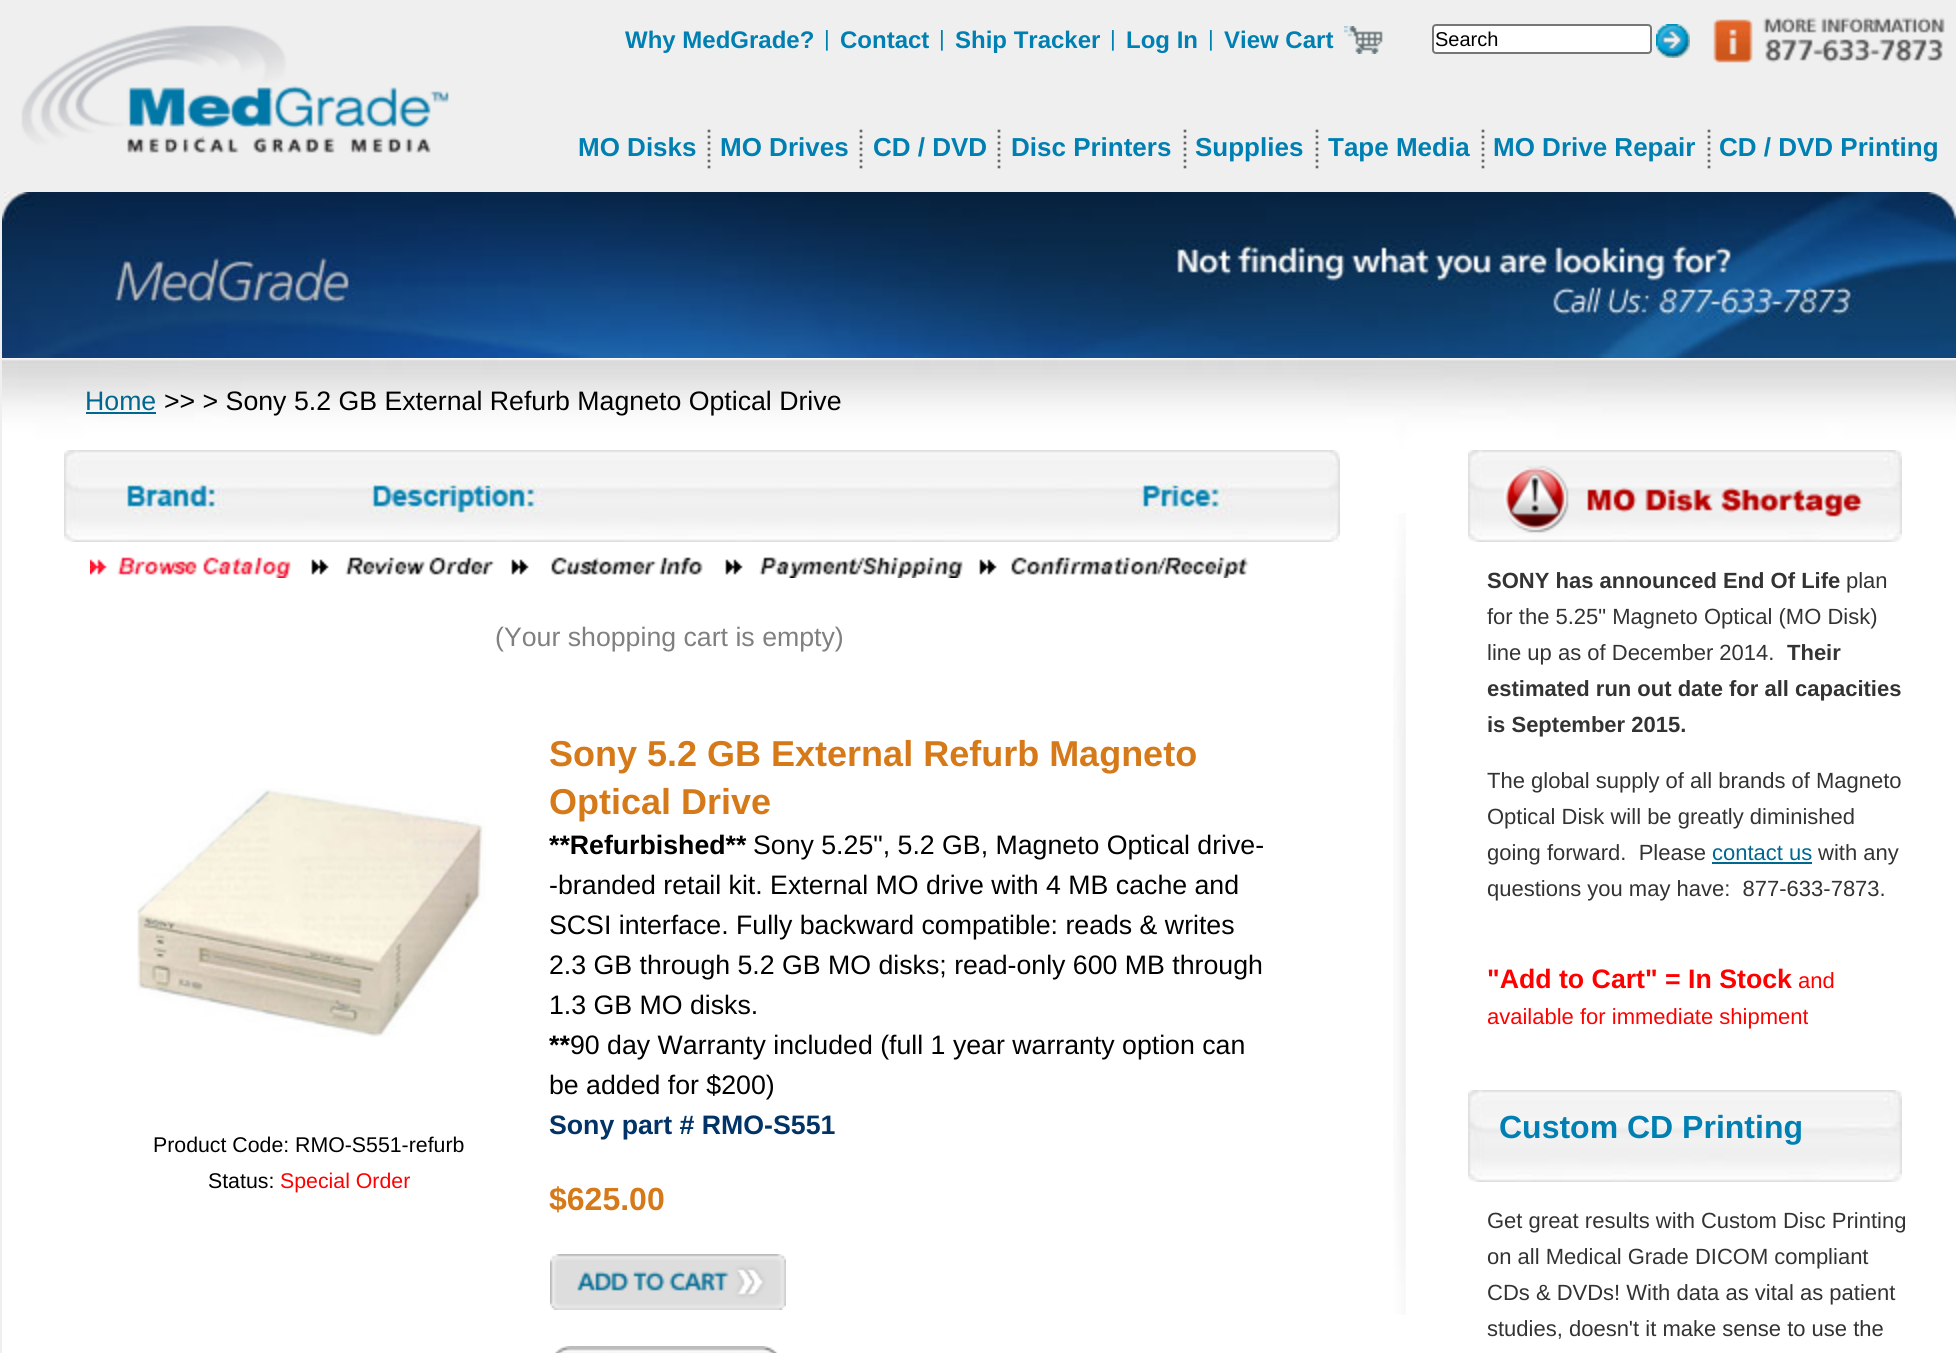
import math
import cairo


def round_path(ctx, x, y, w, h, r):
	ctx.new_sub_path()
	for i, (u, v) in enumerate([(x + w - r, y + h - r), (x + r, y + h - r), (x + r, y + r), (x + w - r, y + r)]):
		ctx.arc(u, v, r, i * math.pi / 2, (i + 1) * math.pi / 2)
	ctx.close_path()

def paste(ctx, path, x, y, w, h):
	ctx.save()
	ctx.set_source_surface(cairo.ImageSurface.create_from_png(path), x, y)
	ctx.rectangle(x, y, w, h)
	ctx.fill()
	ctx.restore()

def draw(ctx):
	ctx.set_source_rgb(0.937, 0.937, 0.937)
	ctx.paint()
	ctx.set_source_rgb(1, 1, 1)
	ctx.rectangle(2, 450, 1954, 903)
	ctx.fill()
	paste(ctx, 'media/1.png', 2, 0, 454, 192)
	ctx.select_font_face('Liberation Sans', cairo.FONT_SLANT_NORMAL, cairo.FONT_WEIGHT_BOLD)
	ctx.set_font_size(24)
	ctx.set_source_rgb(0, 0.502, 0.698)
	ctx.move_to(625, 48)
	ctx.show_text('Why MedGrade?')
	ctx.select_font_face('Liberation Sans')
	ctx.set_font_size(22)
	ctx.move_to(824, 46)
	ctx.show_text('|')
	ctx.select_font_face('Liberation Sans', cairo.FONT_SLANT_NORMAL, cairo.FONT_WEIGHT_BOLD)
	ctx.set_font_size(24)
	ctx.move_to(840, 48)
	ctx.show_text('Contact')
	ctx.select_font_face('Liberation Sans')
	ctx.set_font_size(22)
	ctx.move_to(939, 46)
	ctx.show_text('|')
	ctx.select_font_face('Liberation Sans', cairo.FONT_SLANT_NORMAL, cairo.FONT_WEIGHT_BOLD)
	ctx.set_font_size(24)
	ctx.move_to(955, 48)
	ctx.show_text('Ship Tracker')
	ctx.select_font_face('Liberation Sans')
	ctx.set_font_size(22)
	ctx.move_to(1110, 46)
	ctx.show_text('|')
	ctx.select_font_face('Liberation Sans', cairo.FONT_SLANT_NORMAL, cairo.FONT_WEIGHT_BOLD)
	ctx.set_font_size(24)
	ctx.move_to(1126, 48)
	ctx.show_text('Log In')
	ctx.select_font_face('Liberation Sans')
	ctx.set_font_size(22)
	ctx.move_to(1208, 46)
	ctx.show_text('|')
	ctx.select_font_face('Liberation Sans', cairo.FONT_SLANT_NORMAL, cairo.FONT_WEIGHT_BOLD)
	ctx.set_font_size(24)
	ctx.move_to(1224, 48)
	ctx.show_text('View Cart')
	paste(ctx, 'media/2.png', 1344, 26, 39, 28)
	ctx.set_source_rgb(1, 1, 1)
	round_path(ctx, 1433, 25, 218, 28, 3)
	ctx.fill_preserve()
	ctx.set_source_rgb(0.463, 0.463, 0.463)
	ctx.stroke()
	ctx.select_font_face('Liberation Sans')
	ctx.set_font_size(20)
	ctx.set_source_rgb(0, 0, 0)
	ctx.move_to(1435, 46)
	ctx.show_text('Search')
	paste(ctx, 'media/3.png', 1656, 24, 34, 34)
	paste(ctx, 'media/4.png', 1713, 17, 232, 46)
	paste(ctx, 'media/5.png', 707, 129, 4, 40)
	ctx.select_font_face('Liberation Sans', cairo.FONT_SLANT_NORMAL, cairo.FONT_WEIGHT_BOLD)
	ctx.set_font_size(26)
	ctx.set_source_rgb(0, 0.502, 0.698)
	ctx.move_to(578, 156)
	ctx.show_text('MO Disks')
	paste(ctx, 'media/5.png', 859, 129, 4, 40)
	ctx.move_to(720, 156)
	ctx.show_text('MO Drives')
	paste(ctx, 'media/5.png', 997, 129, 4, 40)
	ctx.move_to(873, 156)
	ctx.show_text('CD / DVD')
	paste(ctx, 'media/5.png', 1183, 129, 4, 40)
	ctx.move_to(1011, 156)
	ctx.show_text('Disc Printers')
	paste(ctx, 'media/5.png', 1315, 129, 4, 40)
	ctx.move_to(1195, 156)
	ctx.show_text('Supplies')
	paste(ctx, 'media/5.png', 1481, 129, 4, 40)
	ctx.move_to(1328, 156)
	ctx.show_text('Tape Media')
	paste(ctx, 'media/5.png', 1707, 129, 4, 40)
	ctx.move_to(1493, 156)
	ctx.show_text('MO Drive Repair')
	ctx.move_to(1719, 156)
	ctx.show_text('CD / DVD Printing')
	paste(ctx, 'media/6.png', 2, 192, 1954, 166)
	paste(ctx, 'media/7.png', 2, 358, 1954, 92)
	ctx.select_font_face('Liberation Sans')
	ctx.set_font_size(26.7)
	ctx.set_source_rgb(0, 0.404, 0.561)
	ctx.move_to(85, 410)
	ctx.show_text('Home')
	ctx.rectangle(86, 412, 70, 2)
	ctx.fill()
	ctx.set_source_rgb(0, 0, 0)
	ctx.move_to(164, 410)
	ctx.show_text('>> > Sony 5.2 GB External Refurb Magneto Optical Drive')
	paste(ctx, 'media/8.png', 64, 450, 1276, 92)
	paste(ctx, 'media/9.png', 90, 557, 1159, 21)
	ctx.set_source_rgb(0.502, 0.502, 0.502)
	ctx.move_to(495, 646)
	ctx.show_text('(Your shopping cart is empty)')
	paste(ctx, 'media/10.png', 137, 788, 349, 249)
	ctx.set_font_size(21.3)
	ctx.set_source_rgb(0, 0, 0)
	ctx.move_to(153, 1152)
	ctx.show_text('Product Code: RMO-S551-refurb')
	ctx.move_to(208, 1188)
	ctx.show_text('Status:')
	ctx.set_source_rgb(1, 0, 0)
	ctx.move_to(280, 1188)
	ctx.show_text('Special Order')
	ctx.select_font_face('Liberation Sans', cairo.FONT_SLANT_NORMAL, cairo.FONT_WEIGHT_BOLD)
	ctx.set_font_size(36)
	ctx.set_source_rgb(0.835, 0.475, 0.098)
	ctx.move_to(549, 766)
	ctx.show_text('Sony 5.2 GB External Refurb Magneto')
	ctx.move_to(549, 814)
	ctx.show_text('Optical Drive')
	ctx.set_font_size(26.7)
	ctx.set_source_rgb(0, 0, 0)
	ctx.move_to(549, 854)
	ctx.show_text('**Refurbished**')
	ctx.select_font_face('Liberation Sans')
	for x, y, s in [
		(753, 854, 'Sony 5.25", 5.2 GB, Magneto Optical drive-'),
		(549, 894, '-branded retail kit. External MO drive with 4 MB cache and'),
		(549, 934, 'SCSI interface. Fully backward compatible: reads & writes'),
		(549, 974, '2.3 GB through 5.2 GB MO disks; read-only 600 MB through'),
		(549, 1014, '1.3 GB MO disks.'),
	]:
		ctx.move_to(x, y)
		ctx.show_text(s)
	ctx.select_font_face('Liberation Sans', cairo.FONT_SLANT_NORMAL, cairo.FONT_WEIGHT_BOLD)
	ctx.move_to(549, 1054)
	ctx.show_text('**')
	ctx.select_font_face('Liberation Sans')
	ctx.move_to(570, 1054)
	ctx.show_text('90 day Warranty included (full 1 year warranty option can')
	ctx.move_to(549, 1094)
	ctx.show_text('be added for $200)')
	ctx.select_font_face('Liberation Sans', cairo.FONT_SLANT_NORMAL, cairo.FONT_WEIGHT_BOLD)
	ctx.set_source_rgb(0.004, 0.2, 0.4)
	ctx.move_to(549, 1134)
	ctx.show_text('Sony part # RMO-S551')
	ctx.set_font_size(32)
	ctx.set_source_rgb(0.835, 0.475, 0.098)
	ctx.move_to(549, 1210)
	ctx.show_text('$625.00')
	paste(ctx, 'media/11.png', 550, 1254, 236, 56)
	paste(ctx, 'media/12.png', 554, 1346, 224, 7)
	paste(ctx, 'media/13.png', 1393, 513, 13, 802)
	paste(ctx, 'media/14.png', 1468, 450, 434, 92)
	paste(ctx, 'media/15.png', 1503, 465, 360, 68)
	ctx.set_font_size(22)
	ctx.set_source_rgb(0.2, 0.2, 0.2)
	ctx.move_to(1487, 588)
	ctx.show_text('SONY has announced End Of Life')
	ctx.select_font_face('Liberation Sans')
	for x, y, s in [
		(1846, 588, 'plan'),
		(1487, 624, 'for the 5.25" Magneto Optical (MO Disk)'),
		(1487, 660, 'line up as of December 2014.'),
	]:
		ctx.move_to(x, y)
		ctx.show_text(s)
	ctx.select_font_face('Liberation Sans', cairo.FONT_SLANT_NORMAL, cairo.FONT_WEIGHT_BOLD)
	for x, y, s in [
		(1787, 660, 'Their'),
		(1487, 696, 'estimated run out date for all capacities'),
		(1487, 732, 'is September 2015.'),
	]:
		ctx.move_to(x, y)
		ctx.show_text(s)
	ctx.select_font_face('Liberation Sans')
	for x, y, s in [
		(1487, 788, 'The global supply of all brands of Magneto'),
		(1487, 824, 'Optical Disk will be greatly diminished'),
		(1487, 860, 'going forward.  Please'),
	]:
		ctx.move_to(x, y)
		ctx.show_text(s)
	ctx.set_source_rgb(0, 0.404, 0.561)
	ctx.move_to(1712, 860)
	ctx.show_text('contact us')
	ctx.rectangle(1712, 862, 100, 2)
	ctx.fill()
	ctx.set_source_rgb(0.2, 0.2, 0.2)
	ctx.move_to(1818, 860)
	ctx.show_text('with any')
	ctx.move_to(1487, 896)
	ctx.show_text('questions you may have:  877-633-7873.')
	ctx.select_font_face('Liberation Sans', cairo.FONT_SLANT_NORMAL, cairo.FONT_WEIGHT_BOLD)
	ctx.set_font_size(26.7)
	ctx.set_source_rgb(1, 0, 0)
	ctx.move_to(1487, 988)
	ctx.show_text('"Add to Cart" = In Stock')
	ctx.select_font_face('Liberation Sans')
	ctx.set_font_size(22)
	ctx.move_to(1798, 988)
	ctx.show_text('and')
	ctx.move_to(1487, 1024)
	ctx.show_text('available for immediate shipment')
	paste(ctx, 'media/14.png', 1468, 1090, 434, 92)
	ctx.select_font_face('Liberation Sans', cairo.FONT_SLANT_NORMAL, cairo.FONT_WEIGHT_BOLD)
	ctx.set_font_size(32)
	ctx.set_source_rgb(0, 0.502, 0.698)
	ctx.move_to(1499, 1138)
	ctx.show_text('Custom CD Printing')
	ctx.select_font_face('Liberation Sans')
	ctx.set_font_size(22)
	ctx.set_source_rgb(0.2, 0.2, 0.2)
	for x, y, s in [
		(1487, 1228, 'Get great results with Custom Disc Printing'),
		(1487, 1264, 'on all Medical Grade DICOM compliant'),
		(1487, 1300, 'CDs & DVDs! With data as vital as patient'),
		(1487, 1336, 'studies, doesn\'t it make sense to use the'),
	]:
		ctx.move_to(x, y)
		ctx.show_text(s)


surface = cairo.ImageSurface(cairo.FORMAT_RGB24, 1956, 1353)
ctx = cairo.Context(surface)
options = cairo.FontOptions()
options.set_hint_metrics(cairo.HINT_METRICS_OFF)
options.set_hint_style(cairo.HINT_STYLE_NONE)
ctx.set_font_options(options)
ctx.set_miter_limit(4)
draw(ctx)
surface.write_to_png('image.png')
